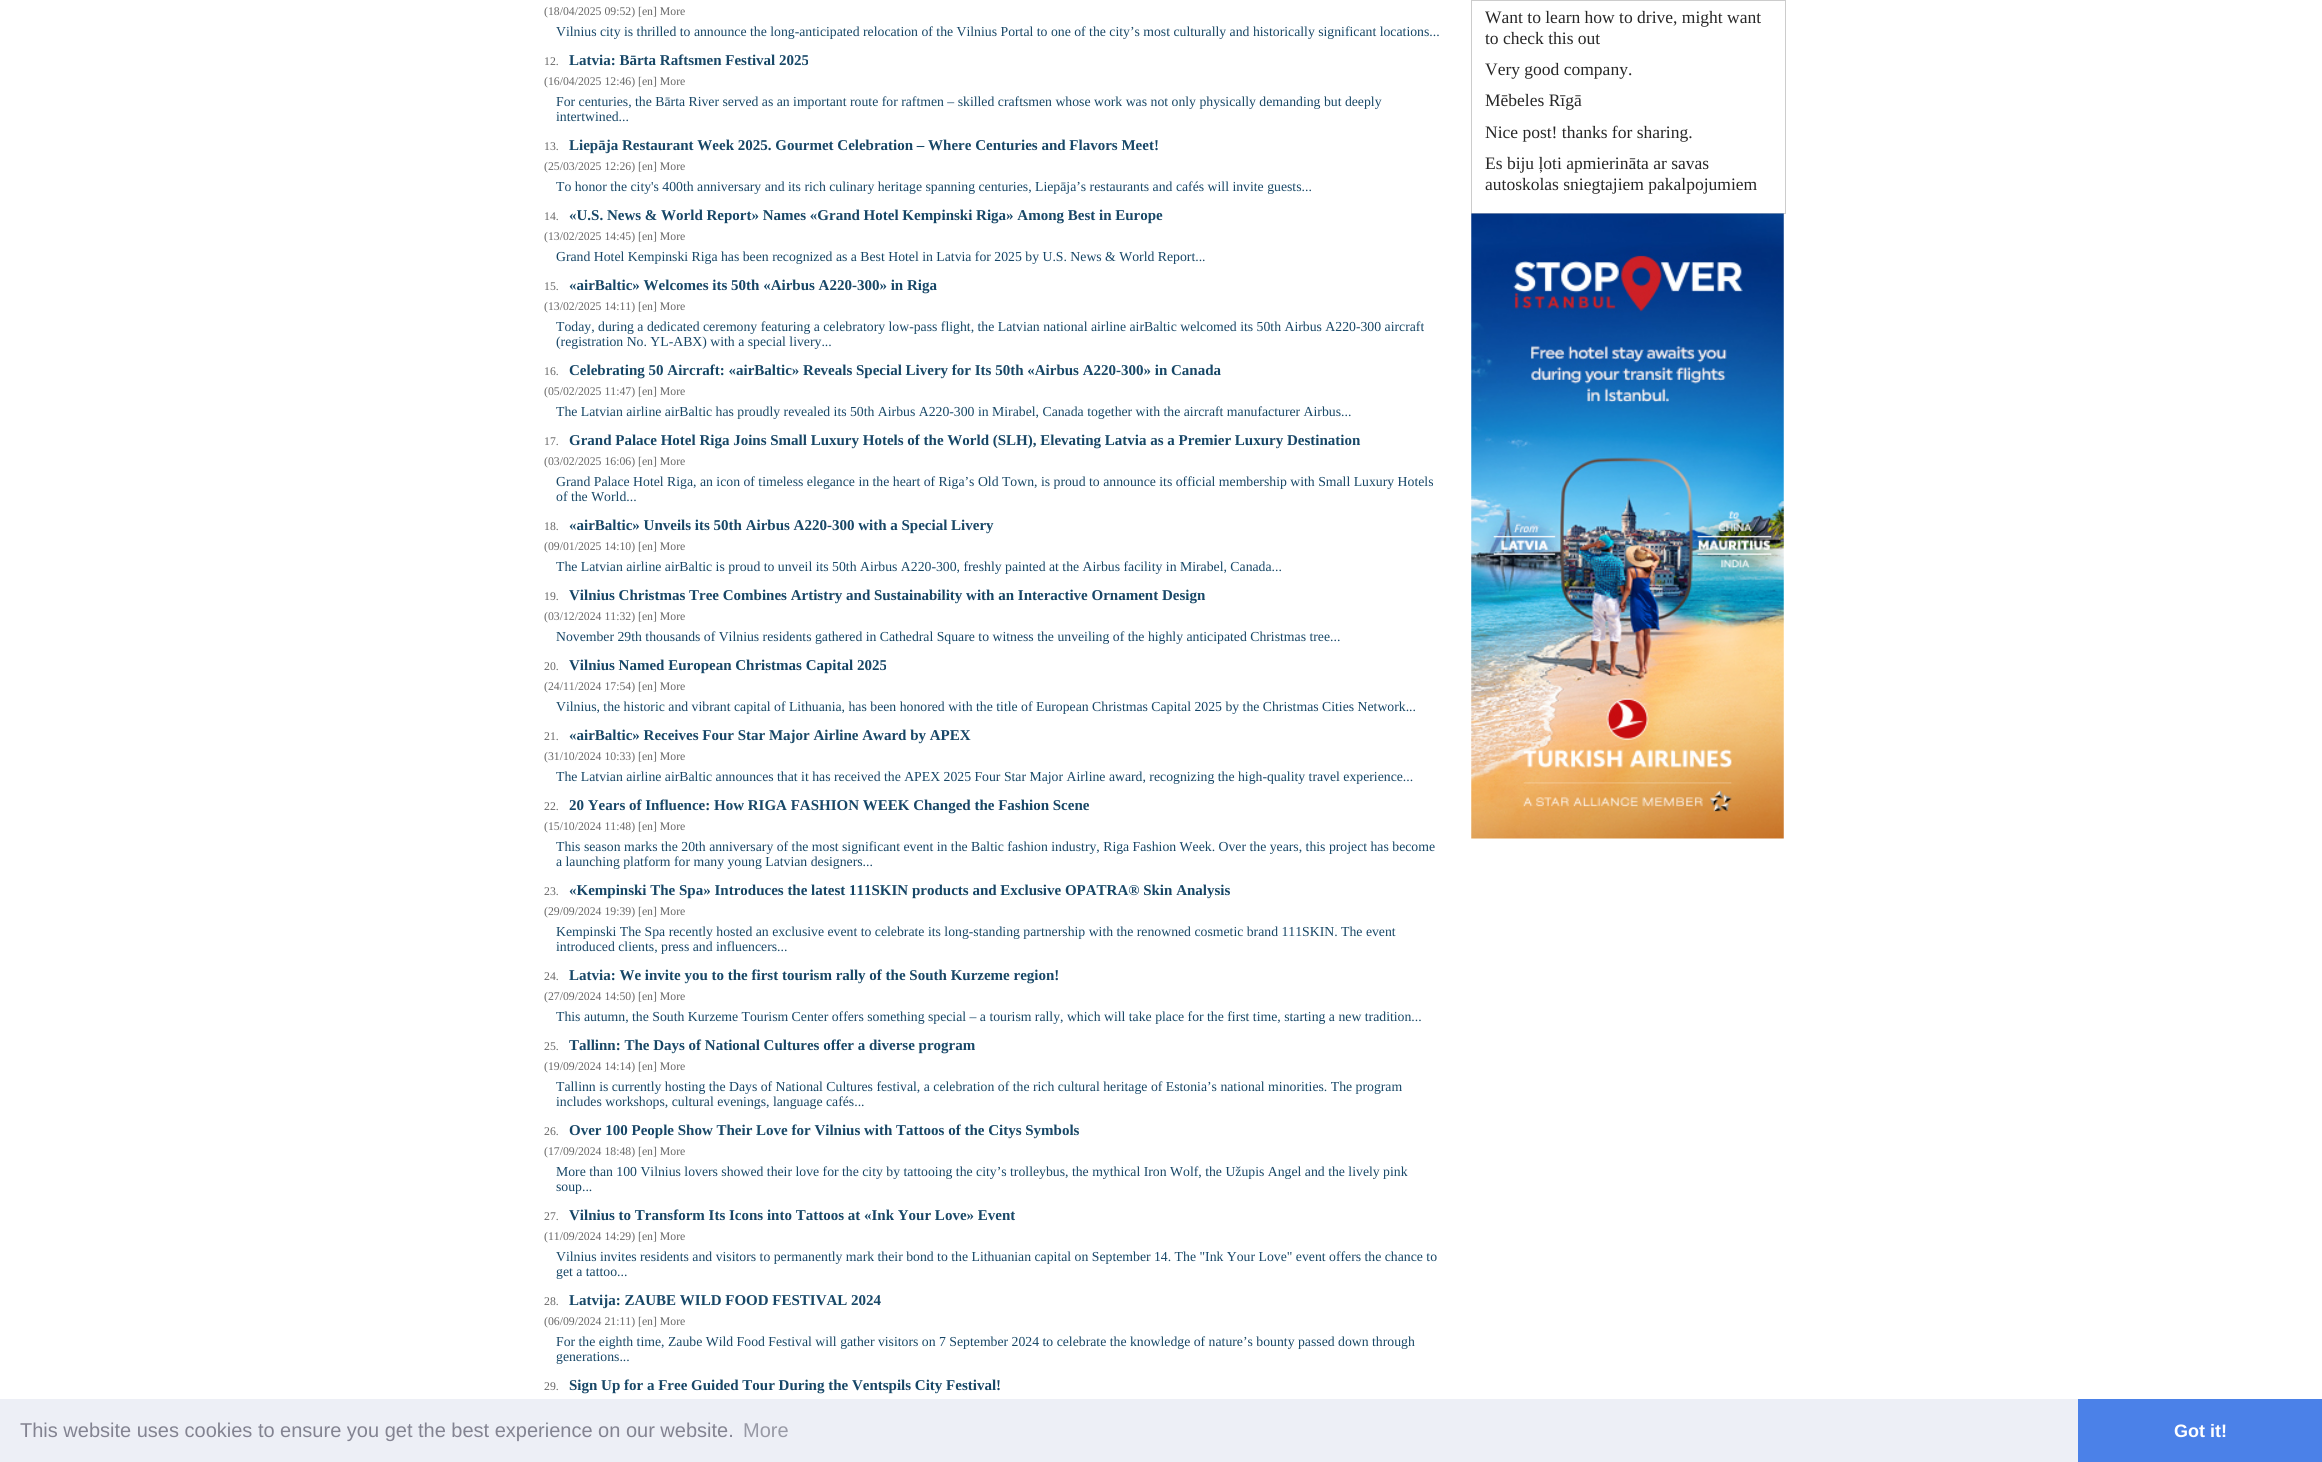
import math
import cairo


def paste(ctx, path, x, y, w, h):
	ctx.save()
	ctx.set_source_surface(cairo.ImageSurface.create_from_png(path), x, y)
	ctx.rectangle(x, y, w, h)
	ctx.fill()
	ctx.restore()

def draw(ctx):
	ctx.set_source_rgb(1, 1, 1)
	ctx.paint()
	ctx.select_font_face('Liberation Serif')
	ctx.set_font_size(11.75)
	ctx.set_source_rgb(0.4, 0.4, 0.4)
	ctx.move_to(544, 15)
	ctx.show_text('(18/04/2025 09:52) [en] More')
	ctx.set_font_size(13.75)
	ctx.set_source_rgb(0.09, 0.278, 0.404)
	ctx.move_to(556, 36)
	ctx.show_text('Vilnius city is thrilled to announce the long-anticipated relocation of the Vilnius Portal to one of the city’s most culturally and historically significant locations...')
	ctx.set_font_size(11.75)
	ctx.set_source_rgb(0.4, 0.4, 0.4)
	ctx.move_to(544, 65)
	ctx.show_text('12.')
	ctx.select_font_face('Liberation Serif', cairo.FONT_SLANT_NORMAL, cairo.FONT_WEIGHT_BOLD)
	ctx.set_font_size(15)
	ctx.set_source_rgb(0.09, 0.278, 0.404)
	ctx.move_to(569, 65)
	ctx.show_text('Latvia: Bārta Raftsmen Festival 2025')
	ctx.select_font_face('Liberation Serif')
	ctx.set_font_size(11.75)
	ctx.set_source_rgb(0.4, 0.4, 0.4)
	ctx.move_to(544, 85)
	ctx.show_text('(16/04/2025 12:46) [en] More')
	ctx.set_font_size(13.75)
	ctx.set_source_rgb(0.09, 0.278, 0.404)
	ctx.move_to(556, 106)
	ctx.show_text('For centuries, the Bārta River served as an important route for raftmen – skilled craftsmen whose work was not only physically demanding but deeply')
	ctx.move_to(556, 121)
	ctx.show_text('intertwined...')
	ctx.set_font_size(11.75)
	ctx.set_source_rgb(0.4, 0.4, 0.4)
	ctx.move_to(544, 150)
	ctx.show_text('13.')
	ctx.select_font_face('Liberation Serif', cairo.FONT_SLANT_NORMAL, cairo.FONT_WEIGHT_BOLD)
	ctx.set_font_size(15)
	ctx.set_source_rgb(0.09, 0.278, 0.404)
	ctx.move_to(569, 150)
	ctx.show_text('Liepāja Restaurant Week 2025. Gourmet Celebration – Where Centuries and Flavors Meet!')
	ctx.select_font_face('Liberation Serif')
	ctx.set_font_size(11.75)
	ctx.set_source_rgb(0.4, 0.4, 0.4)
	ctx.move_to(544, 170)
	ctx.show_text('(25/03/2025 12:26) [en] More')
	ctx.set_font_size(13.75)
	ctx.set_source_rgb(0.09, 0.278, 0.404)
	ctx.move_to(556, 191)
	ctx.show_text('To honor the city\'s 400th anniversary and its rich culinary heritage spanning centuries, Liepāja’s restaurants and cafés will invite guests...')
	ctx.set_font_size(11.75)
	ctx.set_source_rgb(0.4, 0.4, 0.4)
	ctx.move_to(544, 220)
	ctx.show_text('14.')
	ctx.select_font_face('Liberation Serif', cairo.FONT_SLANT_NORMAL, cairo.FONT_WEIGHT_BOLD)
	ctx.set_font_size(15)
	ctx.set_source_rgb(0.09, 0.278, 0.404)
	ctx.move_to(569, 220)
	ctx.show_text('«U.S. News & World Report» Names «Grand Hotel Kempinski Riga» Among Best in Europe')
	ctx.select_font_face('Liberation Serif')
	ctx.set_font_size(11.75)
	ctx.set_source_rgb(0.4, 0.4, 0.4)
	ctx.move_to(544, 240)
	ctx.show_text('(13/02/2025 14:45) [en] More')
	ctx.set_font_size(13.75)
	ctx.set_source_rgb(0.09, 0.278, 0.404)
	ctx.move_to(556, 261)
	ctx.show_text('Grand Hotel Kempinski Riga has been recognized as a Best Hotel in Latvia for 2025 by U.S. News & World Report...')
	ctx.set_font_size(11.75)
	ctx.set_source_rgb(0.4, 0.4, 0.4)
	ctx.move_to(544, 290)
	ctx.show_text('15.')
	ctx.select_font_face('Liberation Serif', cairo.FONT_SLANT_NORMAL, cairo.FONT_WEIGHT_BOLD)
	ctx.set_font_size(15)
	ctx.set_source_rgb(0.09, 0.278, 0.404)
	ctx.move_to(569, 290)
	ctx.show_text('«airBaltic» Welcomes its 50th «Airbus A220-300» in Riga')
	ctx.select_font_face('Liberation Serif')
	ctx.set_font_size(11.75)
	ctx.set_source_rgb(0.4, 0.4, 0.4)
	ctx.move_to(544, 310)
	ctx.show_text('(13/02/2025 14:11) [en] More')
	ctx.set_font_size(13.75)
	ctx.set_source_rgb(0.09, 0.278, 0.404)
	ctx.move_to(556, 331)
	ctx.show_text('Today, during a dedicated ceremony featuring a celebratory low-pass flight, the Latvian national airline airBaltic welcomed its 50th Airbus A220-300 aircraft')
	ctx.move_to(556, 346)
	ctx.show_text('(registration No. YL-ABX) with a special livery...')
	ctx.set_font_size(11.75)
	ctx.set_source_rgb(0.4, 0.4, 0.4)
	ctx.move_to(544, 375)
	ctx.show_text('16.')
	ctx.select_font_face('Liberation Serif', cairo.FONT_SLANT_NORMAL, cairo.FONT_WEIGHT_BOLD)
	ctx.set_font_size(15)
	ctx.set_source_rgb(0.09, 0.278, 0.404)
	ctx.move_to(569, 375)
	ctx.show_text('Celebrating 50 Aircraft: «airBaltic» Reveals Special Livery for Its 50th «Airbus A220-300» in Canada')
	ctx.select_font_face('Liberation Serif')
	ctx.set_font_size(11.75)
	ctx.set_source_rgb(0.4, 0.4, 0.4)
	ctx.move_to(544, 395)
	ctx.show_text('(05/02/2025 11:47) [en] More')
	ctx.set_font_size(13.75)
	ctx.set_source_rgb(0.09, 0.278, 0.404)
	ctx.move_to(556, 416)
	ctx.show_text('The Latvian airline airBaltic has proudly revealed its 50th Airbus A220-300 in Mirabel, Canada together with the aircraft manufacturer Airbus...')
	ctx.set_font_size(11.75)
	ctx.set_source_rgb(0.4, 0.4, 0.4)
	ctx.move_to(544, 445)
	ctx.show_text('17.')
	ctx.select_font_face('Liberation Serif', cairo.FONT_SLANT_NORMAL, cairo.FONT_WEIGHT_BOLD)
	ctx.set_font_size(15)
	ctx.set_source_rgb(0.09, 0.278, 0.404)
	ctx.move_to(569, 445)
	ctx.show_text('Grand Palace Hotel Riga Joins Small Luxury Hotels of the World (SLH), Elevating Latvia as a Premier Luxury Destination')
	ctx.select_font_face('Liberation Serif')
	ctx.set_font_size(11.75)
	ctx.set_source_rgb(0.4, 0.4, 0.4)
	ctx.move_to(544, 465)
	ctx.show_text('(03/02/2025 16:06) [en] More')
	ctx.set_font_size(13.75)
	ctx.set_source_rgb(0.09, 0.278, 0.404)
	ctx.move_to(556, 486)
	ctx.show_text('Grand Palace Hotel Riga, an icon of timeless elegance in the heart of Riga’s Old Town, is proud to announce its official membership with Small Luxury Hotels')
	ctx.move_to(556, 501)
	ctx.show_text('of the World...')
	ctx.set_font_size(11.75)
	ctx.set_source_rgb(0.4, 0.4, 0.4)
	ctx.move_to(544, 530)
	ctx.show_text('18.')
	ctx.select_font_face('Liberation Serif', cairo.FONT_SLANT_NORMAL, cairo.FONT_WEIGHT_BOLD)
	ctx.set_font_size(15)
	ctx.set_source_rgb(0.09, 0.278, 0.404)
	ctx.move_to(569, 530)
	ctx.show_text('«airBaltic» Unveils its 50th Airbus A220-300 with a Special Livery')
	ctx.select_font_face('Liberation Serif')
	ctx.set_font_size(11.75)
	ctx.set_source_rgb(0.4, 0.4, 0.4)
	ctx.move_to(544, 550)
	ctx.show_text('(09/01/2025 14:10) [en] More')
	ctx.set_font_size(13.75)
	ctx.set_source_rgb(0.09, 0.278, 0.404)
	ctx.move_to(556, 571)
	ctx.show_text('The Latvian airline airBaltic is proud to unveil its 50th Airbus A220-300, freshly painted at the Airbus facility in Mirabel, Canada...')
	ctx.set_font_size(11.75)
	ctx.set_source_rgb(0.4, 0.4, 0.4)
	ctx.move_to(544, 600)
	ctx.show_text('19.')
	ctx.select_font_face('Liberation Serif', cairo.FONT_SLANT_NORMAL, cairo.FONT_WEIGHT_BOLD)
	ctx.set_font_size(15)
	ctx.set_source_rgb(0.09, 0.278, 0.404)
	ctx.move_to(569, 600)
	ctx.show_text('Vilnius Christmas Tree Combines Artistry and Sustainability with an Interactive Ornament Design')
	ctx.select_font_face('Liberation Serif')
	ctx.set_font_size(11.75)
	ctx.set_source_rgb(0.4, 0.4, 0.4)
	ctx.move_to(544, 620)
	ctx.show_text('(03/12/2024 11:32) [en] More')
	ctx.set_font_size(13.75)
	ctx.set_source_rgb(0.09, 0.278, 0.404)
	ctx.move_to(556, 641)
	ctx.show_text('November 29th thousands of Vilnius residents gathered in Cathedral Square to witness the unveiling of the highly anticipated Christmas tree...')
	ctx.set_font_size(11.75)
	ctx.set_source_rgb(0.4, 0.4, 0.4)
	ctx.move_to(544, 670)
	ctx.show_text('20.')
	ctx.select_font_face('Liberation Serif', cairo.FONT_SLANT_NORMAL, cairo.FONT_WEIGHT_BOLD)
	ctx.set_font_size(15)
	ctx.set_source_rgb(0.09, 0.278, 0.404)
	ctx.move_to(569, 670)
	ctx.show_text('Vilnius Named European Christmas Capital 2025')
	ctx.select_font_face('Liberation Serif')
	ctx.set_font_size(11.75)
	ctx.set_source_rgb(0.4, 0.4, 0.4)
	ctx.move_to(544, 690)
	ctx.show_text('(24/11/2024 17:54) [en] More')
	ctx.set_font_size(13.75)
	ctx.set_source_rgb(0.09, 0.278, 0.404)
	ctx.move_to(556, 711)
	ctx.show_text('Vilnius, the historic and vibrant capital of Lithuania, has been honored with the title of European Christmas Capital 2025 by the Christmas Cities Network...')
	ctx.set_font_size(11.75)
	ctx.set_source_rgb(0.4, 0.4, 0.4)
	ctx.move_to(544, 740)
	ctx.show_text('21.')
	ctx.select_font_face('Liberation Serif', cairo.FONT_SLANT_NORMAL, cairo.FONT_WEIGHT_BOLD)
	ctx.set_font_size(15)
	ctx.set_source_rgb(0.09, 0.278, 0.404)
	ctx.move_to(569, 740)
	ctx.show_text('«airBaltic» Receives Four Star Major Airline Award by APEX')
	ctx.select_font_face('Liberation Serif')
	ctx.set_font_size(11.75)
	ctx.set_source_rgb(0.4, 0.4, 0.4)
	ctx.move_to(544, 760)
	ctx.show_text('(31/10/2024 10:33) [en] More')
	ctx.set_font_size(13.75)
	ctx.set_source_rgb(0.09, 0.278, 0.404)
	ctx.move_to(556, 781)
	ctx.show_text('The Latvian airline airBaltic announces that it has received the APEX 2025 Four Star Major Airline award, recognizing the high-quality travel experience...')
	ctx.set_font_size(11.75)
	ctx.set_source_rgb(0.4, 0.4, 0.4)
	ctx.move_to(544, 810)
	ctx.show_text('22.')
	ctx.select_font_face('Liberation Serif', cairo.FONT_SLANT_NORMAL, cairo.FONT_WEIGHT_BOLD)
	ctx.set_font_size(15)
	ctx.set_source_rgb(0.09, 0.278, 0.404)
	ctx.move_to(569, 810)
	ctx.show_text('20 Years of Influence: How RIGA FASHION WEEK Changed the Fashion Scene')
	ctx.select_font_face('Liberation Serif')
	ctx.set_font_size(11.75)
	ctx.set_source_rgb(0.4, 0.4, 0.4)
	ctx.move_to(544, 830)
	ctx.show_text('(15/10/2024 11:48) [en] More')
	ctx.set_font_size(13.75)
	ctx.set_source_rgb(0.09, 0.278, 0.404)
	ctx.move_to(556, 851)
	ctx.show_text('This season marks the 20th anniversary of the most significant event in the Baltic fashion industry, Riga Fashion Week. Over the years, this project has become')
	ctx.move_to(556, 866)
	ctx.show_text('a launching platform for many young Latvian designers...')
	ctx.set_font_size(11.75)
	ctx.set_source_rgb(0.4, 0.4, 0.4)
	ctx.move_to(544, 895)
	ctx.show_text('23.')
	ctx.select_font_face('Liberation Serif', cairo.FONT_SLANT_NORMAL, cairo.FONT_WEIGHT_BOLD)
	ctx.set_font_size(15)
	ctx.set_source_rgb(0.09, 0.278, 0.404)
	ctx.move_to(569, 895)
	ctx.show_text('«Kempinski The Spa» Introduces the latest 111SKIN products and Exclusive OPATRA® Skin Analysis')
	ctx.select_font_face('Liberation Serif')
	ctx.set_font_size(11.75)
	ctx.set_source_rgb(0.4, 0.4, 0.4)
	ctx.move_to(544, 915)
	ctx.show_text('(29/09/2024 19:39) [en] More')
	ctx.set_font_size(13.75)
	ctx.set_source_rgb(0.09, 0.278, 0.404)
	ctx.move_to(556, 936)
	ctx.show_text('Kempinski The Spa recently hosted an exclusive event to celebrate its long-standing partnership with the renowned cosmetic brand 111SKIN. The event')
	ctx.move_to(556, 951)
	ctx.show_text('introduced clients, press and influencers...')
	ctx.set_font_size(11.75)
	ctx.set_source_rgb(0.4, 0.4, 0.4)
	ctx.move_to(544, 980)
	ctx.show_text('24.')
	ctx.select_font_face('Liberation Serif', cairo.FONT_SLANT_NORMAL, cairo.FONT_WEIGHT_BOLD)
	ctx.set_font_size(15)
	ctx.set_source_rgb(0.09, 0.278, 0.404)
	ctx.move_to(569, 980)
	ctx.show_text('Latvia: We invite you to the first tourism rally of the South Kurzeme region!')
	ctx.select_font_face('Liberation Serif')
	ctx.set_font_size(11.75)
	ctx.set_source_rgb(0.4, 0.4, 0.4)
	ctx.move_to(544, 1000)
	ctx.show_text('(27/09/2024 14:50) [en] More')
	ctx.set_font_size(13.75)
	ctx.set_source_rgb(0.09, 0.278, 0.404)
	ctx.move_to(556, 1021)
	ctx.show_text('This autumn, the South Kurzeme Tourism Center offers something special – a tourism rally, which will take place for the first time, starting a new tradition...')
	ctx.set_font_size(11.75)
	ctx.set_source_rgb(0.4, 0.4, 0.4)
	ctx.move_to(544, 1050)
	ctx.show_text('25.')
	ctx.select_font_face('Liberation Serif', cairo.FONT_SLANT_NORMAL, cairo.FONT_WEIGHT_BOLD)
	ctx.set_font_size(15)
	ctx.set_source_rgb(0.09, 0.278, 0.404)
	ctx.move_to(569, 1050)
	ctx.show_text('Tallinn: The Days of National Cultures offer a diverse program')
	ctx.select_font_face('Liberation Serif')
	ctx.set_font_size(11.75)
	ctx.set_source_rgb(0.4, 0.4, 0.4)
	ctx.move_to(544, 1070)
	ctx.show_text('(19/09/2024 14:14) [en] More')
	ctx.set_font_size(13.75)
	ctx.set_source_rgb(0.09, 0.278, 0.404)
	ctx.move_to(556, 1091)
	ctx.show_text('Tallinn is currently hosting the Days of National Cultures festival, a celebration of the rich cultural heritage of Estonia’s national minorities. The program')
	ctx.move_to(556, 1106)
	ctx.show_text('includes workshops, cultural evenings, language cafés...')
	ctx.set_font_size(11.75)
	ctx.set_source_rgb(0.4, 0.4, 0.4)
	ctx.move_to(544, 1135)
	ctx.show_text('26.')
	ctx.select_font_face('Liberation Serif', cairo.FONT_SLANT_NORMAL, cairo.FONT_WEIGHT_BOLD)
	ctx.set_font_size(15)
	ctx.set_source_rgb(0.09, 0.278, 0.404)
	ctx.move_to(569, 1135)
	ctx.show_text('Over 100 People Show Their Love for Vilnius with Tattoos of the Citys Symbols')
	ctx.select_font_face('Liberation Serif')
	ctx.set_font_size(11.75)
	ctx.set_source_rgb(0.4, 0.4, 0.4)
	ctx.move_to(544, 1155)
	ctx.show_text('(17/09/2024 18:48) [en] More')
	ctx.set_font_size(13.75)
	ctx.set_source_rgb(0.09, 0.278, 0.404)
	ctx.move_to(556, 1176)
	ctx.show_text('More than 100 Vilnius lovers showed their love for the city by tattooing the city’s trolleybus, the mythical Iron Wolf, the Užupis Angel and the lively pink')
	ctx.move_to(556, 1191)
	ctx.show_text('soup...')
	ctx.set_font_size(11.75)
	ctx.set_source_rgb(0.4, 0.4, 0.4)
	ctx.move_to(544, 1220)
	ctx.show_text('27.')
	ctx.select_font_face('Liberation Serif', cairo.FONT_SLANT_NORMAL, cairo.FONT_WEIGHT_BOLD)
	ctx.set_font_size(15)
	ctx.set_source_rgb(0.09, 0.278, 0.404)
	ctx.move_to(569, 1220)
	ctx.show_text('Vilnius to Transform Its Icons into Tattoos at «Ink Your Love» Event')
	ctx.select_font_face('Liberation Serif')
	ctx.set_font_size(11.75)
	ctx.set_source_rgb(0.4, 0.4, 0.4)
	ctx.move_to(544, 1240)
	ctx.show_text('(11/09/2024 14:29) [en] More')
	ctx.set_font_size(13.75)
	ctx.set_source_rgb(0.09, 0.278, 0.404)
	ctx.move_to(556, 1261)
	ctx.show_text('Vilnius invites residents and visitors to permanently mark their bond to the Lithuanian capital on September 14. The "Ink Your Love" event offers the chance to')
	ctx.move_to(556, 1276)
	ctx.show_text('get a tattoo...')
	ctx.set_font_size(11.75)
	ctx.set_source_rgb(0.4, 0.4, 0.4)
	ctx.move_to(544, 1305)
	ctx.show_text('28.')
	ctx.select_font_face('Liberation Serif', cairo.FONT_SLANT_NORMAL, cairo.FONT_WEIGHT_BOLD)
	ctx.set_font_size(15)
	ctx.set_source_rgb(0.09, 0.278, 0.404)
	ctx.move_to(569, 1305)
	ctx.show_text('Latvija: ZAUBE WILD FOOD FESTIVAL 2024')
	ctx.select_font_face('Liberation Serif')
	ctx.set_font_size(11.75)
	ctx.set_source_rgb(0.4, 0.4, 0.4)
	ctx.move_to(544, 1325)
	ctx.show_text('(06/09/2024 21:11) [en] More')
	ctx.set_font_size(13.75)
	ctx.set_source_rgb(0.09, 0.278, 0.404)
	ctx.move_to(556, 1346)
	ctx.show_text('For the eighth time, Zaube Wild Food Festival will gather visitors on 7 September 2024 to celebrate the knowledge of nature’s bounty passed down through')
	ctx.move_to(556, 1361)
	ctx.show_text('generations...')
	ctx.set_font_size(11.75)
	ctx.set_source_rgb(0.4, 0.4, 0.4)
	ctx.move_to(544, 1390)
	ctx.show_text('29.')
	ctx.select_font_face('Liberation Serif', cairo.FONT_SLANT_NORMAL, cairo.FONT_WEIGHT_BOLD)
	ctx.set_font_size(15)
	ctx.set_source_rgb(0.09, 0.278, 0.404)
	ctx.move_to(569, 1390)
	ctx.show_text('Sign Up for a Free Guided Tour During the Ventspils City Festival!')
	ctx.rectangle(1471.5, 0.5, 314, 213)
	ctx.set_source_rgb(0.8, 0.8, 0.8)
	ctx.set_line_width(1)
	ctx.stroke()
	ctx.select_font_face('Liberation Serif')
	ctx.set_font_size(17.5)
	ctx.set_source_rgb(0.153, 0.153, 0.153)
	for x, y, s in [
		(1485, 23, 'Want to learn how to drive, might want'),
		(1485, 44, 'to check this out'),
		(1485, 75, 'Very good company.'),
		(1485, 106, 'Mēbeles Rīgā'),
		(1485, 138, 'Nice post! thanks for sharing.'),
		(1485, 169, 'Es biju ļoti apmierināta ar savas'),
		(1485, 190, 'autoskolas sniegtajiem pakalpojumiem'),
	]:
		ctx.move_to(x, y)
		ctx.show_text(s)
	paste(ctx, 'media/1.png', 1471, 213, 313, 626)
	ctx.set_source_rgb(0.929, 0.937, 0.961)
	ctx.rectangle(0, 1399, 2078, 63)
	ctx.fill()
	ctx.select_font_face('Liberation Sans')
	ctx.set_font_size(20)
	ctx.set_source_rgb(0.514, 0.514, 0.569)
	ctx.move_to(20, 1437)
	ctx.show_text('This website uses cookies to ensure you get the best experience on our website.')
	ctx.set_source_rgb(0.596, 0.6, 0.647)
	ctx.move_to(743, 1437)
	ctx.show_text('More')
	ctx.set_source_rgb(0.294, 0.506, 0.91)
	ctx.rectangle(2078, 1399, 244, 63)
	ctx.fill()
	ctx.select_font_face('Liberation Sans', cairo.FONT_SLANT_NORMAL, cairo.FONT_WEIGHT_BOLD)
	ctx.set_font_size(18)
	ctx.set_source_rgb(1, 1, 1)
	ctx.move_to(2174, 1437)
	ctx.show_text('Got it!')


surface = cairo.ImageSurface(cairo.FORMAT_RGB24, 2322, 1462)
ctx = cairo.Context(surface)
options = cairo.FontOptions()
options.set_hint_metrics(cairo.HINT_METRICS_OFF)
options.set_hint_style(cairo.HINT_STYLE_NONE)
ctx.set_font_options(options)
ctx.set_miter_limit(4)
draw(ctx)
surface.write_to_png('image.png')
